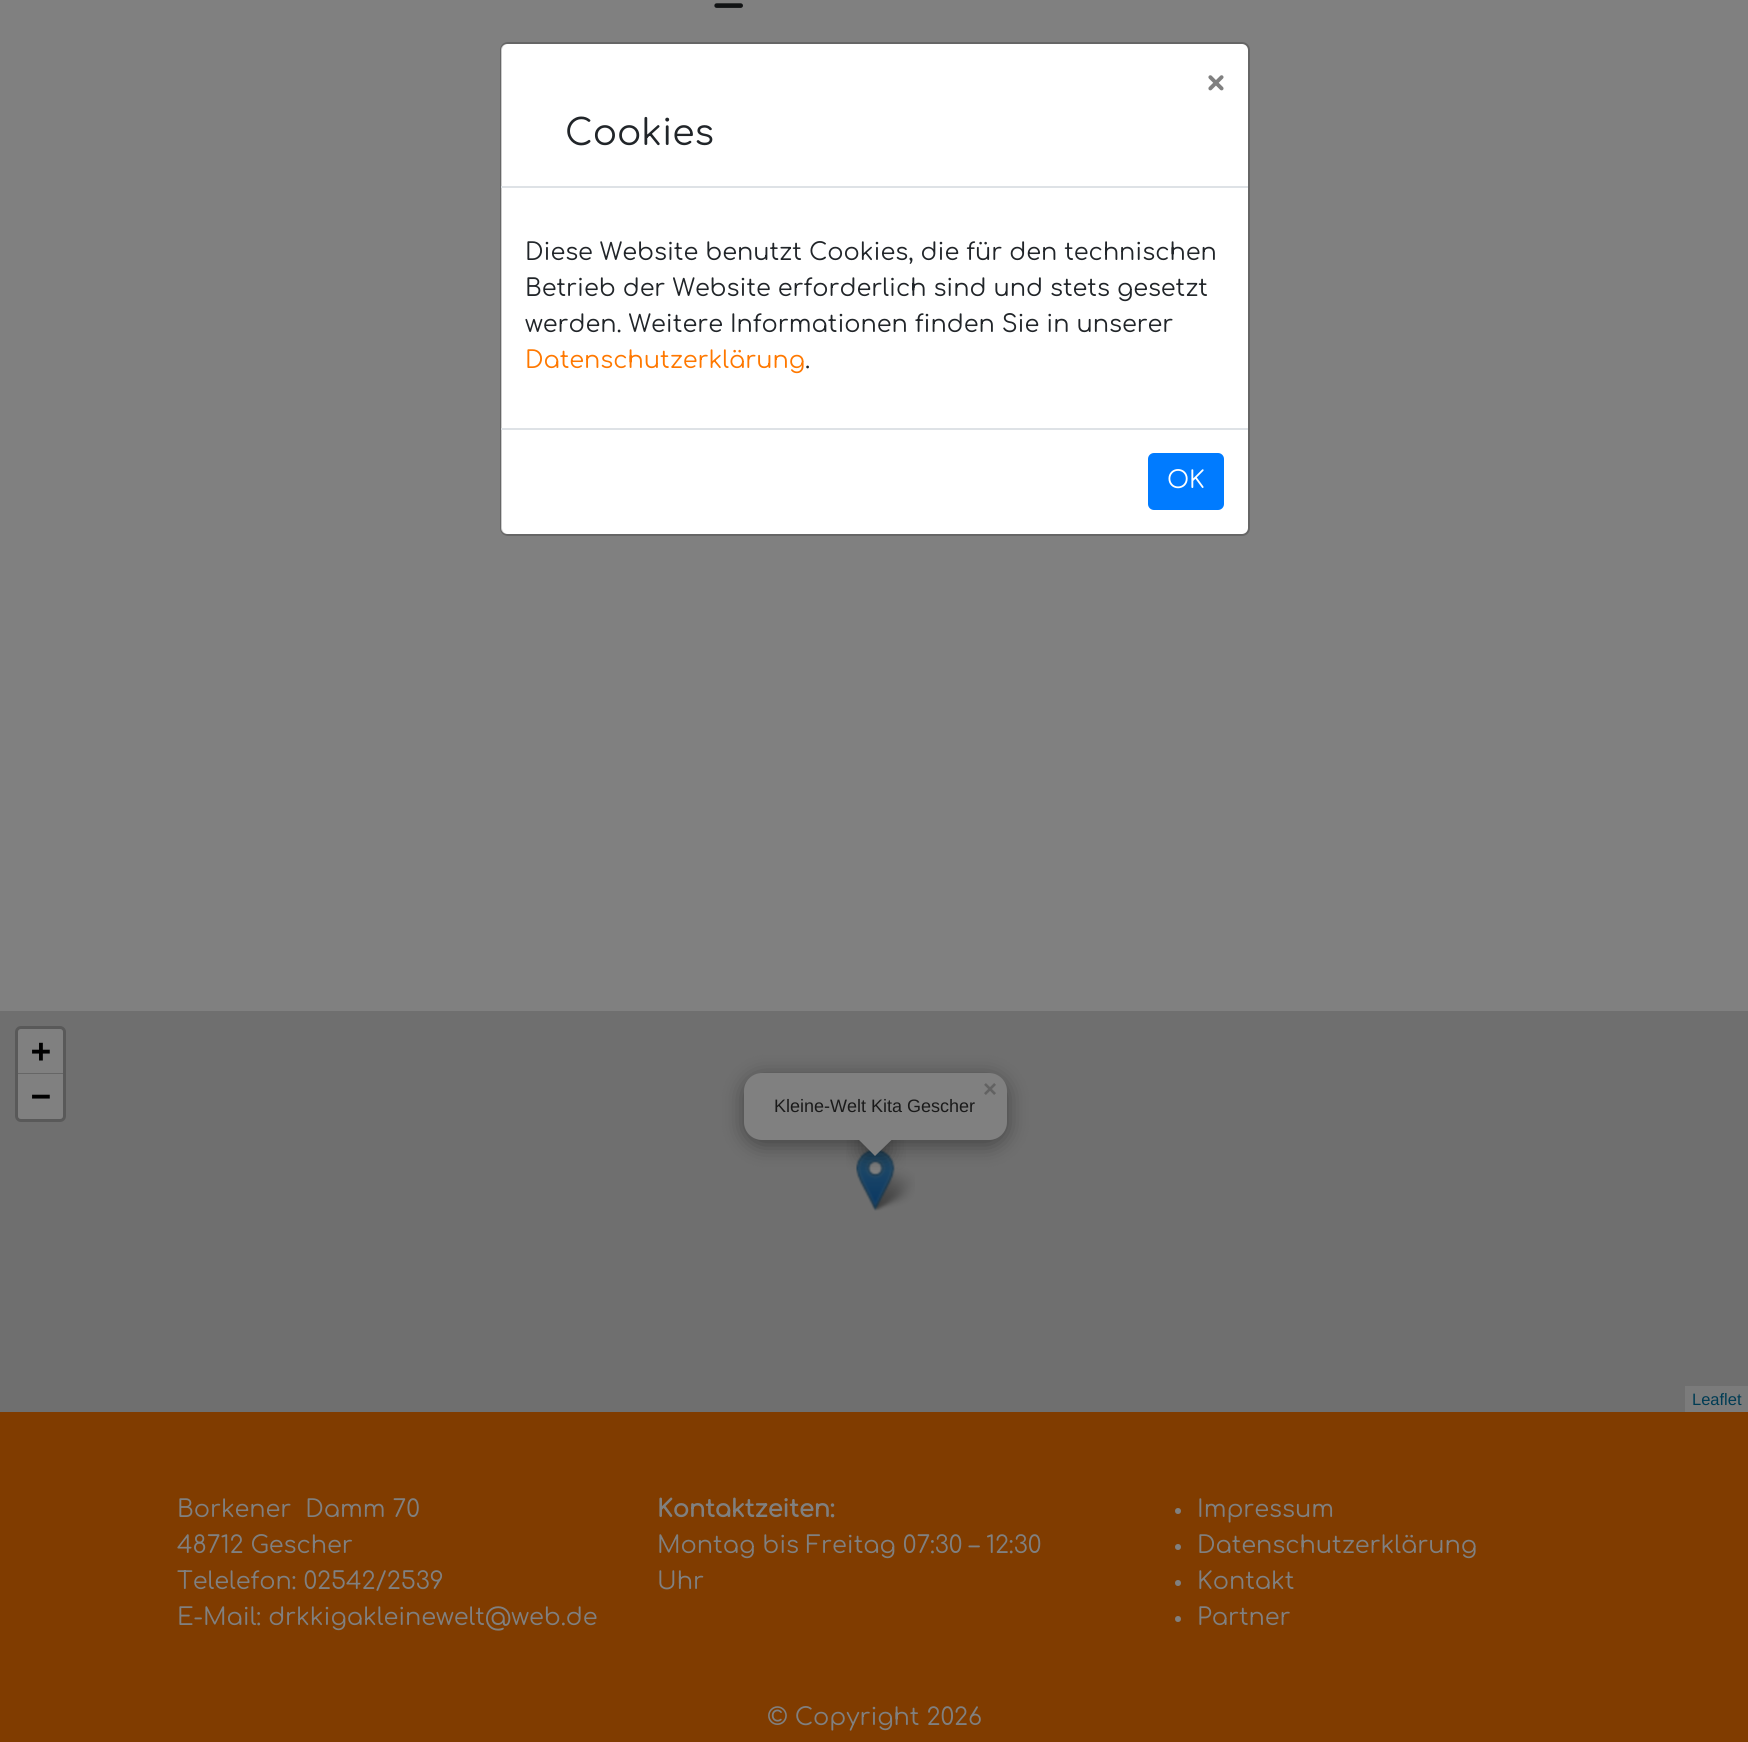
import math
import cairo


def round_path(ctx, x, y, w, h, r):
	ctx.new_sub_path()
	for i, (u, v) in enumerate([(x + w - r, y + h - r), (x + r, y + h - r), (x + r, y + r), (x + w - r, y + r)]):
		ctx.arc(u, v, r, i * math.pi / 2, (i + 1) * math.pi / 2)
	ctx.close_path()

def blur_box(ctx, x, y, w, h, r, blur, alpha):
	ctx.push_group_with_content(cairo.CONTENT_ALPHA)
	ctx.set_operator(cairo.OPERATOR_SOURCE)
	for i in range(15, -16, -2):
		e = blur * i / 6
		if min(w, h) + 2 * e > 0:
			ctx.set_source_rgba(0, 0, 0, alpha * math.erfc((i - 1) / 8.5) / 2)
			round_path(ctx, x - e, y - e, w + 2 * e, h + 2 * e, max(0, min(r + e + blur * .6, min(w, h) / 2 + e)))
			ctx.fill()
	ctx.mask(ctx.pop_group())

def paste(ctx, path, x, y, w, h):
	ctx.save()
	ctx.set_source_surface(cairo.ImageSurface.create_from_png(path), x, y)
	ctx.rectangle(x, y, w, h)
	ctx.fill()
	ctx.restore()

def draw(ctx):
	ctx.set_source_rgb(0.502, 0.502, 0.502)
	ctx.paint()
	ctx.select_font_face('Comfortaa')
	ctx.set_font_size(60)
	ctx.set_source_rgb(0.067, 0.075, 0.082)
	ctx.move_to(717, 22)
	ctx.show_text('–')
	ctx.set_source_rgb(1, 1, 1)
	round_path(ctx, 501, 44, 747, 490, 6)
	ctx.fill()
	round_path(ctx, 501, 43, 748, 492, 7)
	ctx.set_source_rgba(0, 0, 0, 0.2)
	ctx.stroke()
	ctx.set_source_rgb(0.871, 0.886, 0.902)
	ctx.rectangle(501, 186, 747, 2)
	ctx.fill()
	ctx.select_font_face('Comfortaa', cairo.FONT_SLANT_NORMAL, cairo.FONT_WEIGHT_BOLD)
	ctx.set_font_size(36)
	ctx.set_source_rgb(0.502, 0.502, 0.502)
	ctx.move_to(1207, 96)
	ctx.show_text('×')
	ctx.select_font_face('Comfortaa')
	ctx.set_source_rgb(0.129, 0.145, 0.161)
	ctx.move_to(565, 145)
	ctx.show_text('Cookies')
	ctx.set_font_size(24)
	for x, y, s in [
		(525, 260, 'Diese Website benutzt Cookies, die für den technischen'),
		(525, 296, 'Betrieb der Website erforderlich sind und stets gesetzt'),
		(525, 332, 'werden. Weitere Informationen finden Sie in unserer'),
	]:
		ctx.move_to(x, y)
		ctx.show_text(s)
	ctx.set_source_rgb(1, 0.471, 0)
	ctx.move_to(525, 368)
	ctx.show_text('Datenschutzerklärung')
	ctx.set_source_rgb(0.129, 0.145, 0.161)
	ctx.move_to(805, 368)
	ctx.show_text('.')
	ctx.set_source_rgb(0.871, 0.886, 0.902)
	ctx.rectangle(501, 428, 747, 2)
	ctx.fill()
	ctx.set_source_rgb(0, 0.482, 1)
	round_path(ctx, 1149, 454, 74, 55, 5)
	ctx.fill_preserve()
	ctx.stroke()
	ctx.set_source_rgb(1, 1, 1)
	ctx.move_to(1167, 488)
	ctx.show_text('OK')
	ctx.set_source_rgb(0.502, 0.235, 0)
	ctx.rectangle(0, 1412, 1748, 330)
	ctx.fill()
	ctx.set_source_rgb(0.435, 0.435, 0.435)
	ctx.rectangle(0, 1011, 1748, 401)
	ctx.fill()
	round_path(ctx, 16.5, 1027.5, 48, 93, 4.5)
	ctx.set_source_rgb(0.349, 0.349, 0.349)
	ctx.set_line_width(3)
	ctx.stroke()
	ctx.set_source_rgb(0.502, 0.502, 0.502)
	ctx.new_path()
	ctx.move_to(21, 1029)
	ctx.line_to(60, 1029)
	ctx.curve_to(61.5, 1029, 63, 1030.5, 63, 1032)
	ctx.line_to(63, 1074)
	ctx.line_to(18, 1074)
	ctx.line_to(18, 1032)
	ctx.curve_to(18, 1030.5, 19.5, 1029, 21, 1029)
	ctx.close_path()
	ctx.fill()
	ctx.set_source_rgb(0.4, 0.4, 0.4)
	ctx.rectangle(18, 1073, 45, 1)
	ctx.fill()
	ctx.select_font_face('DejaVu Sans Mono', cairo.FONT_SLANT_NORMAL, cairo.FONT_WEIGHT_BOLD)
	ctx.set_font_size(33)
	ctx.set_source_rgb(0, 0, 0)
	ctx.move_to(31, 1062)
	ctx.show_text('+')
	ctx.set_source_rgb(0.502, 0.502, 0.502)
	ctx.new_path()
	ctx.move_to(18, 1074)
	ctx.line_to(63, 1074)
	ctx.line_to(63, 1116)
	ctx.curve_to(63, 1117.5, 61.5, 1119, 60, 1119)
	ctx.line_to(21, 1119)
	ctx.curve_to(19.5, 1119, 18, 1117.5, 18, 1116)
	ctx.close_path()
	ctx.fill()
	ctx.set_source_rgb(0, 0, 0)
	ctx.move_to(31, 1107)
	ctx.show_text('−')
	ctx.set_source_rgb(0.482, 0.482, 0.482)
	ctx.rectangle(1685, 1386, 63, 26)
	ctx.fill()
	ctx.select_font_face('Liberation Sans')
	ctx.set_font_size(16.5)
	ctx.set_source_rgb(0, 0.235, 0.329)
	ctx.move_to(1692, 1405)
	ctx.show_text('Leaflet')
	paste(ctx, 'media/2.png', 870, 1167, 45, 44)
	paste(ctx, 'media/1.png', 856, 1149, 39, 62)
	ctx.set_source_rgb(0, 0, 0)
	blur_box(ctx, 744, 1077, 263, 68, 18, 10.5, 0.4)
	ctx.set_source_rgb(0.502, 0.502, 0.502)
	round_path(ctx, 744, 1073, 263, 67, 18)
	ctx.fill()
	ctx.select_font_face('Liberation Sans', cairo.FONT_SLANT_NORMAL, cairo.FONT_WEIGHT_BOLD)
	ctx.set_font_size(24)
	ctx.set_source_rgb(0.384, 0.384, 0.384)
	ctx.move_to(983, 1097)
	ctx.show_text('×')
	ctx.save()
	ctx.rectangle(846, 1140, 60, 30)
	ctx.clip()
	ctx.set_source_rgb(0, 0, 0)
	blur_box(ctx, 863, 1130, 25, 25, 0, 10.5, 0.4)
	ctx.restore()
	ctx.save()
	ctx.rectangle(846, 1140, 60, 30)
	ctx.clip()
	ctx.set_source_rgb(0.502, 0.502, 0.502)
	ctx.new_path()
	ctx.move_to(875, 1120)
	ctx.line_to(893.5, 1138)
	ctx.line_to(875, 1156)
	ctx.line_to(857, 1138)
	ctx.close_path()
	ctx.fill()
	ctx.restore()
	ctx.select_font_face('Liberation Sans')
	ctx.set_font_size(18)
	ctx.set_source_rgb(0.102, 0.102, 0.102)
	ctx.move_to(774, 1112)
	ctx.show_text('Kleine-Welt Kita Gescher')
	ctx.select_font_face('Comfortaa')
	ctx.set_font_size(24)
	ctx.set_source_rgb(0.502, 0.502, 0.502)
	for x, y, s in [
		(177, 1517, 'Borkener  Damm 70'),
		(177, 1553, '48712 Gescher'),
		(177, 1589, 'Telelefon: 02542/2539'),
		(177, 1625, 'E-Mail: drkkigakleinewelt@web.de'),
	]:
		ctx.move_to(x, y)
		ctx.show_text(s)
	ctx.select_font_face('Comfortaa', cairo.FONT_SLANT_NORMAL, cairo.FONT_WEIGHT_BOLD)
	ctx.move_to(657, 1517)
	ctx.show_text('Kontaktzeiten:')
	ctx.select_font_face('Comfortaa')
	ctx.move_to(657, 1553)
	ctx.show_text('Montag bis Freitag 07:30 – 12:30')
	ctx.move_to(657, 1589)
	ctx.show_text('Uhr')
	ctx.new_path()
	ctx.arc(1178, 1511, 3, 0, 2 * math.pi)
	ctx.fill()
	ctx.move_to(1197, 1517)
	ctx.show_text('Impressum')
	ctx.new_path()
	ctx.arc(1178, 1547, 3, 0, 2 * math.pi)
	ctx.fill()
	ctx.move_to(1197, 1553)
	ctx.show_text('Datenschutzerklärung')
	ctx.new_path()
	ctx.arc(1178, 1583, 3, 0, 2 * math.pi)
	ctx.fill()
	ctx.move_to(1197, 1589)
	ctx.show_text('Kontakt')
	ctx.new_path()
	ctx.arc(1178, 1619, 3, 0, 2 * math.pi)
	ctx.fill()
	ctx.move_to(1197, 1625)
	ctx.show_text('Partner')
	ctx.move_to(767, 1725)
	ctx.show_text('© Copyright 2026')


surface = cairo.ImageSurface(cairo.FORMAT_RGB24, 1748, 1742)
ctx = cairo.Context(surface)
options = cairo.FontOptions()
options.set_hint_metrics(cairo.HINT_METRICS_OFF)
options.set_hint_style(cairo.HINT_STYLE_NONE)
ctx.set_font_options(options)
ctx.set_miter_limit(4)
draw(ctx)
surface.write_to_png('image.png')
